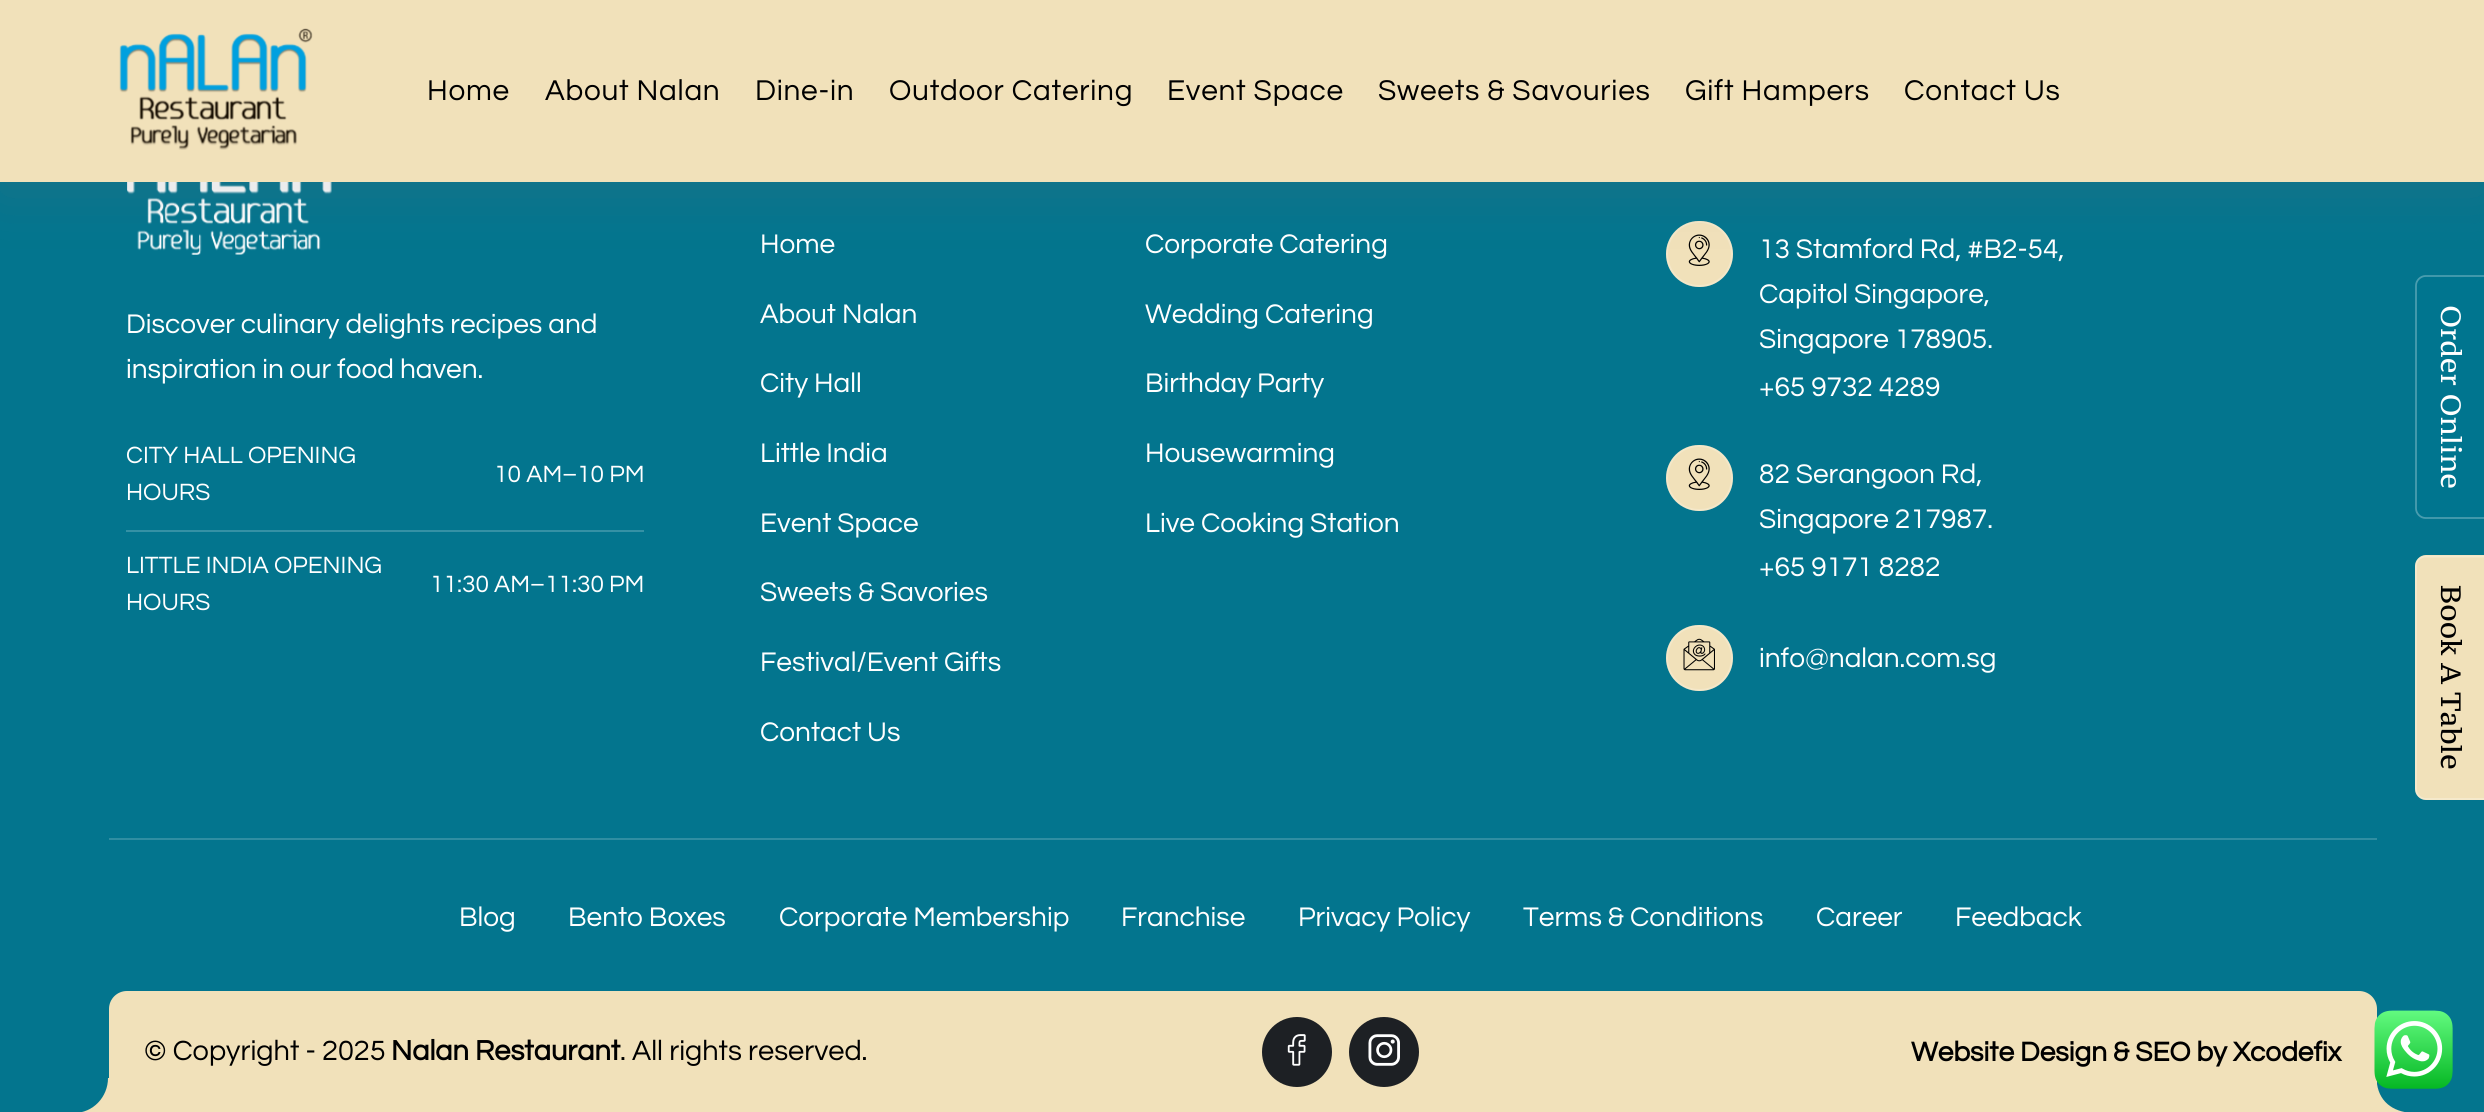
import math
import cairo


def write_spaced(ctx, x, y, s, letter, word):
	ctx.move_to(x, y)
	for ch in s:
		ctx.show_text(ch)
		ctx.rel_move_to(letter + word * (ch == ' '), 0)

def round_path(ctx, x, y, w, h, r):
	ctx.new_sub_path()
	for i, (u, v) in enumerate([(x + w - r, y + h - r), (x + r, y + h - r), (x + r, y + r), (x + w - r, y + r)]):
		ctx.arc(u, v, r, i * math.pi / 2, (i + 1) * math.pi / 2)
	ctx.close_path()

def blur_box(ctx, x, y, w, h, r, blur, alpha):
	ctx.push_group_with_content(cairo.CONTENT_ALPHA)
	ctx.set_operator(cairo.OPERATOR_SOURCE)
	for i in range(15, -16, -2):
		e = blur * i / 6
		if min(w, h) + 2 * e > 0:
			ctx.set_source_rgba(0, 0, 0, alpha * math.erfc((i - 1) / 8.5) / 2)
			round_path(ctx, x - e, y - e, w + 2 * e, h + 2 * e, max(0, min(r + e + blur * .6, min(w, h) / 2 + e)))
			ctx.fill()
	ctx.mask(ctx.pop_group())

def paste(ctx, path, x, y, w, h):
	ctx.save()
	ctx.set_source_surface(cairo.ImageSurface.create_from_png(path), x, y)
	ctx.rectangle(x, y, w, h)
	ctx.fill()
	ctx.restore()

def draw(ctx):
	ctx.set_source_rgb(0.012, 0.459, 0.557)
	ctx.paint()
	paste(ctx, 'media/2.png', 127, 182, 205, 73)
	ctx.set_source_rgb(0.945, 0.882, 0.729)
	round_path(ctx, 1666, 221, 67, 66, 33)
	ctx.fill()
	round_path(ctx, 1667, 222, 65, 64, 32)
	ctx.set_source_rgba(1, 1, 1, 0.2)
	ctx.stroke()
	paste(ctx, 'media/3.png', 1688, 234, 22, 32)
	ctx.set_source_rgb(0.392, 0.392, 0.435)
	blur_box(ctx, 0, 12, 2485, 182, 0, 25.5, 0.2)
	ctx.set_source_rgb(0.945, 0.882, 0.729)
	ctx.rectangle(0, 0, 2484, 182)
	ctx.fill()
	paste(ctx, 'media/1.png', 119, 28, 194, 122)
	ctx.select_font_face('Questrial')
	ctx.set_font_size(29.75)
	ctx.set_source_rgb(0, 0, 0)
	for x, y, s in [
		(427, 100, 'Home'),
		(545, 100, 'About Nalan'),
		(755, 100, 'Dine-in'),
		(889, 100, 'Outdoor Catering'),
		(1167, 100, 'Event Space'),
		(1378, 100, 'Sweets & Savouries'),
		(1685, 100, 'Gift Hampers'),
		(1904, 100, 'Contact Us'),
	]:
		write_spaced(ctx, x, y, s, 0.75, 0)
	ctx.set_font_size(28)
	ctx.set_source_rgb(1, 1, 1)
	ctx.move_to(126, 333)
	ctx.show_text('Discover culinary delights recipes and')
	ctx.move_to(126, 378)
	ctx.show_text('inspiration in our food haven.')
	ctx.set_font_size(24.5)
	for x, y, s in [
		(126, 463, 'CITY HALL OPENING'),
		(494, 482, '10 AM–10 PM'),
		(126, 500, 'HOURS'),
	]:
		ctx.move_to(x, y)
		ctx.show_text(s)
	ctx.set_source_rgb(0.208, 0.569, 0.647)
	ctx.rectangle(126, 530, 518, 2)
	ctx.fill()
	ctx.set_source_rgb(1, 1, 1)
	for x, y, s in [
		(126, 573, 'LITTLE INDIA OPENING'),
		(430, 592, '11:30 AM–11:30 PM'),
		(126, 610, 'HOURS'),
	]:
		ctx.move_to(x, y)
		ctx.show_text(s)
	ctx.set_font_size(28)
	for x, y, s in [
		(760, 253, 'Home'),
		(760, 323, 'About Nalan'),
		(760, 392, 'City Hall'),
		(760, 462, 'Little India'),
		(760, 532, 'Event Space'),
		(760, 601, 'Sweets & Savories'),
		(760, 671, 'Festival/Event Gifts'),
		(760, 741, 'Contact Us'),
		(1145, 253, 'Corporate Catering'),
		(1145, 323, 'Wedding Catering'),
		(1145, 392, 'Birthday Party'),
		(1145, 462, 'Housewarming'),
		(1145, 532, 'Live Cooking Station'),
		(1759, 258, '13 Stamford Rd, #B2-54,'),
		(1759, 303, 'Capitol Singapore,'),
		(1759, 348, 'Singapore 178905.'),
		(1759, 396, '+65 9732 4289'),
	]:
		ctx.move_to(x, y)
		ctx.show_text(s)
	ctx.set_source_rgb(0.945, 0.882, 0.729)
	round_path(ctx, 1666, 445, 67, 66, 33)
	ctx.fill()
	round_path(ctx, 1667, 446, 65, 64, 32)
	ctx.set_source_rgba(1, 1, 1, 0.2)
	ctx.stroke()
	paste(ctx, 'media/3.png', 1688, 458, 22, 32)
	ctx.set_source_rgb(1, 1, 1)
	for x, y, s in [
		(1759, 483, '82 Serangoon Rd,'),
		(1759, 528, 'Singapore 217987.'),
		(1759, 576, '+65 9171 8282'),
	]:
		ctx.move_to(x, y)
		ctx.show_text(s)
	ctx.set_source_rgb(0.945, 0.882, 0.729)
	round_path(ctx, 1666, 625, 67, 66, 33)
	ctx.fill()
	round_path(ctx, 1667, 626, 65, 64, 32)
	ctx.set_source_rgba(1, 1, 1, 0.2)
	ctx.stroke()
	paste(ctx, 'media/4.png', 1683, 638, 32, 33)
	ctx.set_source_rgb(1, 1, 1)
	ctx.move_to(1759, 667)
	ctx.show_text('info@nalan.com.sg')
	ctx.set_source_rgb(0.188, 0.557, 0.635)
	ctx.rectangle(109, 838, 2268, 2)
	ctx.fill()
	ctx.set_source_rgb(1, 1, 1)
	for x, y, s in [
		(459, 926, 'Blog'),
		(568, 926, 'Bento Boxes'),
		(779, 926, 'Corporate Membership'),
		(1121, 926, 'Franchise'),
		(1298, 926, 'Privacy Policy'),
		(1523, 926, 'Terms & Conditions'),
		(1816, 926, 'Career'),
		(1955, 926, 'Feedback'),
	]:
		ctx.move_to(x, y)
		ctx.show_text(s)
	ctx.set_source_rgb(0.945, 0.882, 0.729)
	ctx.new_path()
	ctx.move_to(127, 991)
	ctx.line_to(2359, 991)
	ctx.curve_to(2369, 991, 2377, 999, 2377, 1009)
	ctx.line_to(2377, 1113)
	ctx.line_to(109, 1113)
	ctx.line_to(109, 1009)
	ctx.curve_to(109, 999, 117, 991, 127, 991)
	ctx.close_path()
	ctx.fill()
	ctx.set_font_size(28.9)
	ctx.set_source_rgb(0, 0, 0)
	ctx.move_to(144, 1060)
	ctx.show_text('© Copyright - 2025')
	ctx.select_font_face('Questrial', cairo.FONT_SLANT_NORMAL, cairo.FONT_WEIGHT_BOLD)
	ctx.move_to(391, 1060)
	ctx.show_text('Nalan Restaurant')
	ctx.select_font_face('Questrial')
	ctx.move_to(620, 1060)
	ctx.show_text('. All rights reserved.')
	ctx.set_source_rgb(0.114, 0.125, 0.141)
	ctx.new_path()
	ctx.arc(1297, 1052, 35, 0, 2 * math.pi)
	ctx.fill()
	paste(ctx, 'media/5.png', 1287, 1034, 19, 32)
	ctx.arc(1384, 1052, 35, 0, 2 * math.pi)
	ctx.fill()
	paste(ctx, 'media/6.png', 1368, 1034, 32, 32)
	ctx.select_font_face('Questrial', cairo.FONT_SLANT_NORMAL, cairo.FONT_WEIGHT_BOLD)
	ctx.set_font_size(28)
	ctx.set_source_rgb(0, 0, 0)
	ctx.move_to(1911, 1061)
	ctx.show_text('Website Design & SEO by Xcodefix')
	ctx.set_source_rgb(0.945, 0.882, 0.729)
	ctx.new_path()
	ctx.move_to(70, 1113)
	ctx.line_to(70, 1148)
	ctx.line_to(74, 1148)
	ctx.curve_to(93, 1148, 109, 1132, 109, 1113)
	ctx.line_to(109, 1078)
	ctx.line_to(108, 1078)
	ctx.curve_to(108, 1097, 93, 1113, 74, 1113)
	ctx.close_path()
	ctx.fill()
	ctx.new_path()
	ctx.move_to(2377, 1084)
	ctx.line_to(2377, 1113)
	ctx.curve_to(2377, 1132, 2393, 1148, 2412, 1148)
	ctx.line_to(2415, 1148)
	ctx.line_to(2415, 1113)
	ctx.curve_to(2396, 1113, 2380, 1104, 2377, 1084)
	ctx.close_path()
	ctx.fill()
	ctx.set_source_rgb(0, 0.459, 0.561)
	ctx.new_path()
	ctx.move_to(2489, 275)
	ctx.line_to(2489, 519)
	ctx.line_to(2426, 519)
	ctx.curve_to(2420, 519, 2415, 514, 2415, 508)
	ctx.line_to(2415, 286)
	ctx.curve_to(2415, 280, 2420, 275, 2426, 275)
	ctx.close_path()
	ctx.fill()
	ctx.new_path()
	ctx.move_to(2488, 276)
	ctx.line_to(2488, 518)
	ctx.line_to(2425.5, 518)
	ctx.curve_to(2420.5, 518, 2416, 513.5, 2416, 508.5)
	ctx.line_to(2416, 285.5)
	ctx.curve_to(2416, 280.5, 2420.5, 276, 2425.5, 276)
	ctx.close_path()
	ctx.set_source_rgb(0.29, 0.616, 0.686)
	ctx.set_line_width(1.8)
	ctx.stroke()
	ctx.select_font_face('PT Serif Caption')
	ctx.set_source_rgb(1, 1, 1)
	ctx.save()
	ctx.translate(2441, 305)
	ctx.rotate(90 * math.pi / 180)
	ctx.move_to(0, 0)
	ctx.show_text('Order Online')
	ctx.restore()
	ctx.set_source_rgb(0.945, 0.882, 0.729)
	ctx.new_path()
	ctx.move_to(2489, 555)
	ctx.line_to(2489, 800)
	ctx.line_to(2426, 800)
	ctx.curve_to(2420, 800, 2415, 795, 2415, 789)
	ctx.line_to(2415, 566)
	ctx.curve_to(2415, 560, 2420, 555, 2426, 555)
	ctx.close_path()
	ctx.fill()
	ctx.new_path()
	ctx.move_to(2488, 556.5)
	ctx.line_to(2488, 799)
	ctx.line_to(2425.5, 799)
	ctx.curve_to(2420.5, 799, 2416, 794.5, 2416, 789.5)
	ctx.line_to(2416, 566)
	ctx.curve_to(2416, 560.5, 2420.5, 556.5, 2425.5, 556.5)
	ctx.close_path()
	ctx.set_source_rgba(1, 1, 1, 0.29)
	ctx.stroke()
	ctx.set_source_rgb(0, 0, 0)
	ctx.save()
	ctx.translate(2441, 585)
	ctx.rotate(90 * math.pi / 180)
	ctx.move_to(0, 0)
	ctx.show_text('Book A Table')
	ctx.restore()
	paste(ctx, 'media/7.png', 2374, 1010, 79, 79)


surface = cairo.ImageSurface(cairo.FORMAT_RGB24, 2484, 1112)
ctx = cairo.Context(surface)
options = cairo.FontOptions()
options.set_hint_metrics(cairo.HINT_METRICS_OFF)
options.set_hint_style(cairo.HINT_STYLE_NONE)
ctx.set_font_options(options)
ctx.set_miter_limit(4)
draw(ctx)
surface.write_to_png('image.png')
